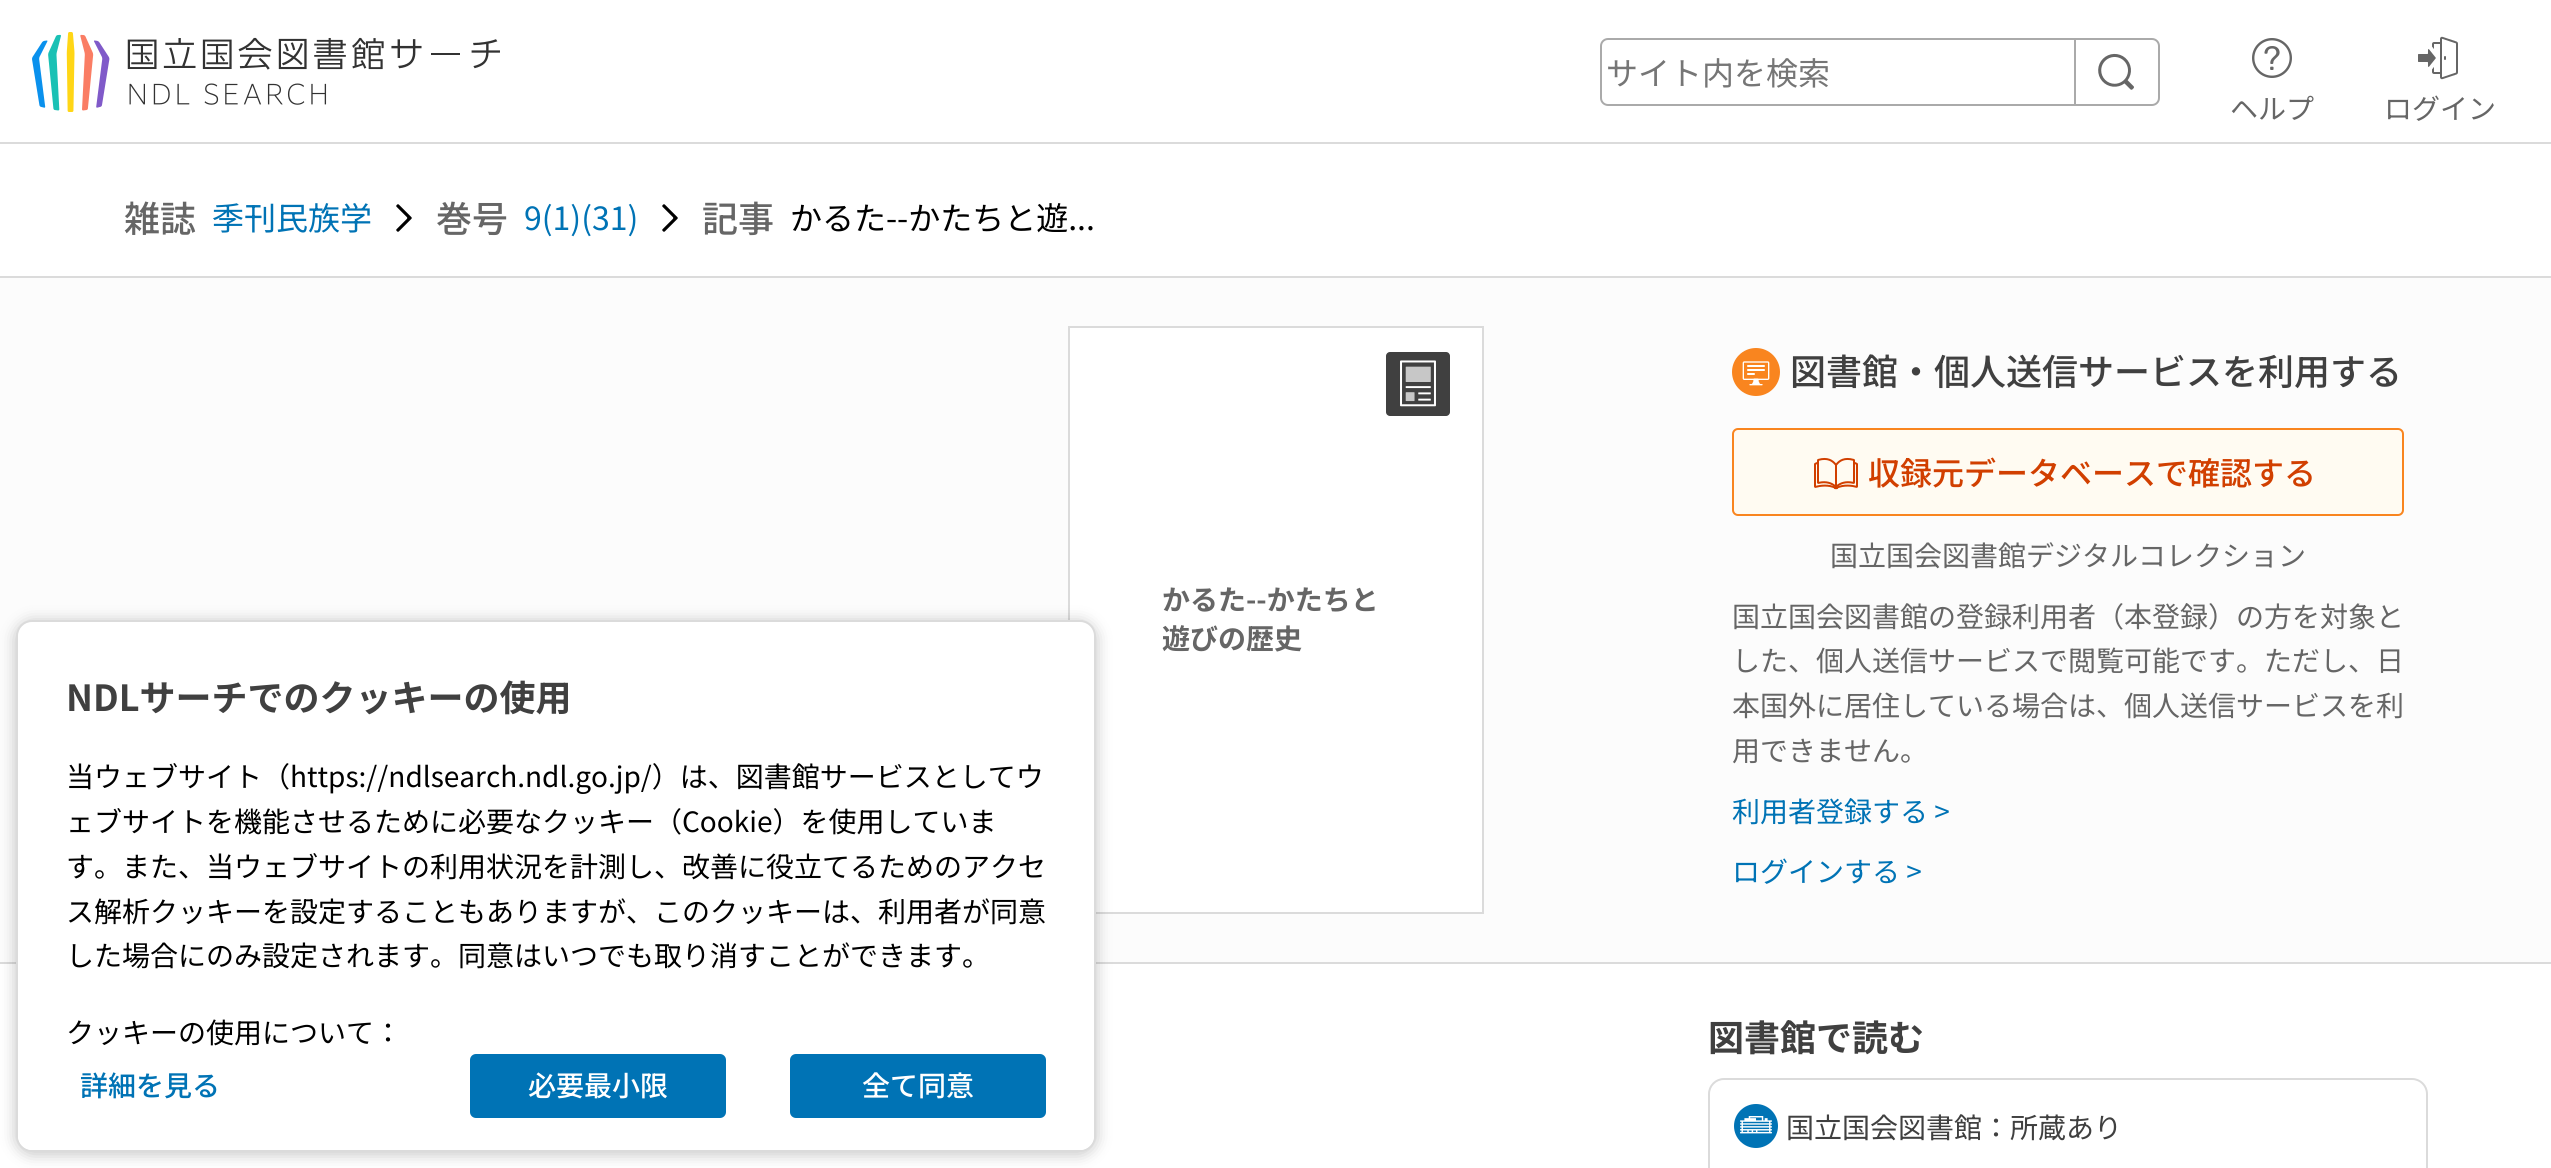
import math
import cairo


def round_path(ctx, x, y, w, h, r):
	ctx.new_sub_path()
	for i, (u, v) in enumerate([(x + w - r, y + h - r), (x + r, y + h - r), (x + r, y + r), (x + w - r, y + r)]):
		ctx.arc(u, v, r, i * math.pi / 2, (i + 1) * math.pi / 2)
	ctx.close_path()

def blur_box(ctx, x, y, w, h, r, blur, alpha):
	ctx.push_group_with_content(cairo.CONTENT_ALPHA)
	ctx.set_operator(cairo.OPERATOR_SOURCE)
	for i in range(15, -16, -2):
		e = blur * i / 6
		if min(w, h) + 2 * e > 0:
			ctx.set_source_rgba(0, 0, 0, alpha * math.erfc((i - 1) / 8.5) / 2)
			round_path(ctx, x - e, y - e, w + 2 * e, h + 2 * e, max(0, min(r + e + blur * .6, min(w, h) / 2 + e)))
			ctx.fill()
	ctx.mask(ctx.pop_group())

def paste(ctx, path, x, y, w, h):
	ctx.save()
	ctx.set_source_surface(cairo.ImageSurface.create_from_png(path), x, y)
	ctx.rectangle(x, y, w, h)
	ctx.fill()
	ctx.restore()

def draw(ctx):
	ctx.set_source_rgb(1, 1, 1)
	ctx.paint()
	ctx.set_source_rgb(0.859, 0.859, 0.859)
	ctx.rectangle(0, 142, 2551, 2)
	ctx.fill()
	paste(ctx, 'media/1.png', 32, 32, 468, 80)
	round_path(ctx, 1601, 39, 558, 66, 7)
	ctx.set_source_rgb(0.667, 0.667, 0.667)
	ctx.stroke()
	ctx.select_font_face('Noto Sans JP')
	ctx.set_font_size(32)
	ctx.set_source_rgb(0.463, 0.463, 0.463)
	ctx.move_to(1606, 85)
	ctx.show_text('サイト内を検索')
	ctx.set_source_rgb(0.667, 0.667, 0.667)
	ctx.rectangle(2074, 38, 2, 68)
	ctx.fill()
	paste(ctx, 'media/2.png', 2098, 53, 36, 37)
	paste(ctx, 'media/3.png', 2252, 38, 40, 40)
	ctx.set_font_size(28)
	ctx.set_source_rgb(0.4, 0.4, 0.4)
	ctx.move_to(2230, 119)
	ctx.show_text('ヘルプ')
	paste(ctx, 'media/4.png', 2418, 36, 40, 44)
	ctx.move_to(2384, 119)
	ctx.show_text('ログイン')
	ctx.select_font_face('Noto Sans JP Medium')
	ctx.set_font_size(36)
	ctx.move_to(124, 232)
	ctx.show_text('雑誌')
	ctx.select_font_face('Noto Sans JP')
	ctx.set_font_size(32)
	ctx.set_source_rgb(0, 0.451, 0.71)
	ctx.move_to(212, 230)
	ctx.show_text('季刊民族学')
	paste(ctx, 'media/5.png', 396, 204, 16, 28)
	ctx.select_font_face('Noto Sans JP Medium')
	ctx.set_font_size(36)
	ctx.set_source_rgb(0.4, 0.4, 0.4)
	ctx.move_to(436, 232)
	ctx.show_text('巻号')
	ctx.select_font_face('Noto Sans JP')
	ctx.set_font_size(32)
	ctx.set_source_rgb(0, 0.451, 0.71)
	ctx.move_to(524, 230)
	ctx.show_text('9(1)(31)')
	paste(ctx, 'media/5.png', 662, 204, 16, 28)
	ctx.select_font_face('Noto Sans JP Medium')
	ctx.set_font_size(36)
	ctx.set_source_rgb(0.4, 0.4, 0.4)
	ctx.move_to(702, 232)
	ctx.show_text('記事')
	ctx.select_font_face('Noto Sans JP')
	ctx.set_font_size(32)
	ctx.set_source_rgb(0, 0, 0)
	ctx.move_to(790, 230)
	ctx.show_text('かるた--かたちと遊...')
	ctx.set_source_rgb(0.988, 0.988, 0.988)
	ctx.rectangle(0, 278, 2551, 684)
	ctx.fill()
	ctx.set_source_rgb(0.859, 0.859, 0.859)
	ctx.rectangle(0, 276, 2551, 2)
	ctx.rectangle(0, 962, 2551, 2)
	ctx.fill()
	ctx.set_source_rgb(1, 1, 1)
	ctx.rectangle(1069, 327, 414, 586)
	ctx.fill_preserve()
	ctx.set_source_rgb(0.859, 0.859, 0.859)
	ctx.stroke()
	paste(ctx, 'media/6.png', 1386, 352, 64, 64)
	ctx.select_font_face('Noto Sans JP', cairo.FONT_SLANT_NORMAL, cairo.FONT_WEIGHT_BOLD)
	ctx.set_font_size(28)
	ctx.set_source_rgb(0.4, 0.4, 0.4)
	ctx.move_to(1162, 610)
	ctx.show_text('かるた--かたちと')
	ctx.move_to(1162, 649)
	ctx.show_text('遊びの歴史')
	paste(ctx, 'media/7.png', 1732, 348, 48, 48)
	ctx.select_font_face('Noto Sans JP Medium')
	ctx.set_font_size(36)
	ctx.set_source_rgb(0.251, 0.251, 0.251)
	ctx.move_to(1790, 385)
	ctx.show_text('図書館・個人送信サービスを利用する')
	ctx.set_source_rgb(1, 0.984, 0.949)
	round_path(ctx, 1733, 429, 670, 86, 5)
	ctx.fill_preserve()
	ctx.set_source_rgb(0.976, 0.522, 0.122)
	ctx.stroke()
	paste(ctx, 'media/8.png', 1814, 457, 44, 33)
	ctx.set_font_size(32)
	ctx.set_source_rgb(0.82, 0.247, 0)
	ctx.move_to(1868, 485)
	ctx.show_text('収録元データベースで確認する')
	ctx.select_font_face('Noto Sans JP')
	ctx.set_font_size(28)
	ctx.set_source_rgb(0.4, 0.4, 0.4)
	for x, y, s in [
		(1830, 566, '国立国会図書館デジタルコレクション'),
		(1732, 627, '国立国会図書館の登録利用者（本登録）の方を対象と'),
		(1732, 671, 'した、個人送信サービスで閲覧可能です。ただし、日'),
		(1732, 716, '本国外に居住している場合は、個人送信サービスを利'),
		(1732, 761, '用できません。'),
	]:
		ctx.move_to(x, y)
		ctx.show_text(s)
	ctx.set_source_rgb(0, 0.451, 0.71)
	ctx.move_to(1732, 822)
	ctx.show_text('利用者登録する >')
	ctx.move_to(1732, 882)
	ctx.show_text('ログインする >')
	ctx.select_font_face('Noto Sans JP', cairo.FONT_SLANT_NORMAL, cairo.FONT_WEIGHT_BOLD)
	ctx.set_font_size(36)
	ctx.set_source_rgb(0.251, 0.251, 0.251)
	ctx.move_to(1708, 1051)
	ctx.show_text('図書館で読む')
	round_path(ctx, 1709, 1079, 718, 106, 15)
	ctx.set_source_rgb(0.859, 0.859, 0.859)
	ctx.stroke()
	paste(ctx, 'media/9.png', 1734, 1104, 44, 44)
	ctx.select_font_face('Noto Sans JP')
	ctx.set_font_size(28)
	ctx.set_source_rgb(0.251, 0.251, 0.251)
	ctx.move_to(1786, 1138)
	ctx.show_text('国立国会図書館：所蔵あり')
	ctx.set_source_rgb(0, 0, 0)
	blur_box(ctx, 16, 622, 1080, 532, 16, 8, 0.24)
	ctx.set_source_rgb(1, 1, 1)
	round_path(ctx, 17, 621, 1078, 530, 15)
	ctx.fill_preserve()
	ctx.set_source_rgb(0.859, 0.859, 0.859)
	ctx.stroke()
	ctx.select_font_face('Noto Sans JP', cairo.FONT_SLANT_NORMAL, cairo.FONT_WEIGHT_BOLD)
	ctx.set_font_size(36)
	ctx.set_source_rgb(0.251, 0.251, 0.251)
	ctx.move_to(66, 711)
	ctx.show_text('NDLサーチでのクッキーの使用')
	ctx.select_font_face('Noto Sans JP')
	ctx.set_font_size(28)
	ctx.set_source_rgb(0, 0, 0)
	for x, y, s in [
		(66, 787, '当ウェブサイト（https://ndlsearch.ndl.go.jp/）は、図書館サービスとしてウ'),
		(66, 832, 'ェブサイトを機能させるために必要なクッキー（Cookie）を使用していま'),
		(66, 877, 'す。また、当ウェブサイトの利用状況を計測し、改善に役立てるためのアクセ'),
		(66, 922, 'ス解析クッキーを設定することもありますが、このクッキーは、利用者が同意'),
		(66, 966, 'した場合にのみ設定されます。同意はいつでも取り消すことができます。'),
	]:
		ctx.move_to(x, y)
		ctx.show_text(s)
	ctx.set_source_rgb(1, 1, 1)
	ctx.new_path()
	ctx.move_to(18, 978)
	ctx.line_to(1094, 978)
	ctx.line_to(1094, 1136)
	ctx.curve_to(1094, 1143.5, 1087.5, 1150, 1080, 1150)
	ctx.line_to(32, 1150)
	ctx.curve_to(24.5, 1150, 18, 1143.5, 18, 1136)
	ctx.close_path()
	ctx.fill()
	ctx.set_source_rgb(0, 0, 0)
	ctx.move_to(66, 1043)
	ctx.show_text('クッキーの使用について：')
	ctx.select_font_face('Noto Sans JP Medium')
	ctx.set_source_rgb(0, 0.451, 0.71)
	ctx.move_to(80, 1096)
	ctx.show_text('詳細を見る')
	round_path(ctx, 471, 1055, 254, 62, 5)
	ctx.fill_preserve()
	ctx.stroke()
	ctx.set_source_rgb(1, 1, 1)
	ctx.move_to(528, 1096)
	ctx.show_text('必要最小限')
	ctx.set_source_rgb(0, 0.451, 0.71)
	round_path(ctx, 791, 1055, 254, 62, 5)
	ctx.fill_preserve()
	ctx.stroke()
	ctx.set_source_rgb(1, 1, 1)
	ctx.move_to(862, 1096)
	ctx.show_text('全て同意')


surface = cairo.ImageSurface(cairo.FORMAT_RGB24, 2551, 1168)
ctx = cairo.Context(surface)
options = cairo.FontOptions()
options.set_hint_metrics(cairo.HINT_METRICS_OFF)
options.set_hint_style(cairo.HINT_STYLE_NONE)
ctx.set_font_options(options)
ctx.set_miter_limit(4)
draw(ctx)
surface.write_to_png('image.png')
